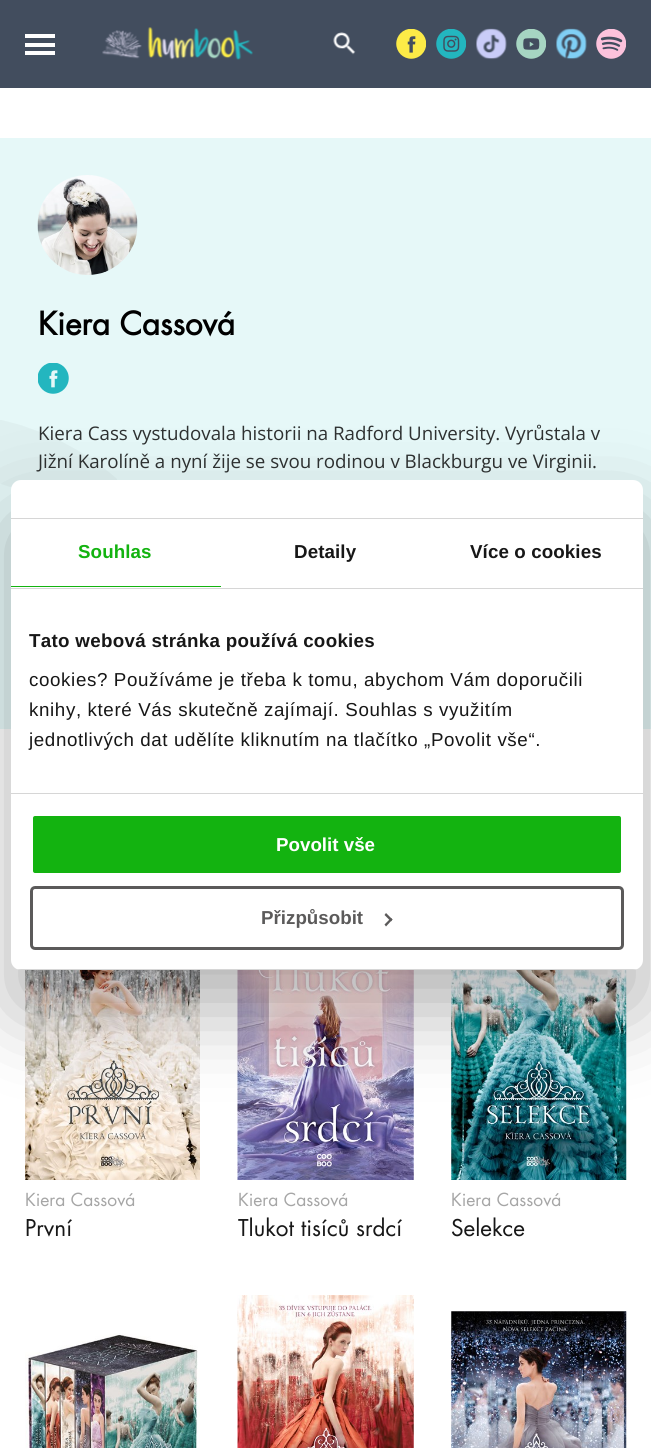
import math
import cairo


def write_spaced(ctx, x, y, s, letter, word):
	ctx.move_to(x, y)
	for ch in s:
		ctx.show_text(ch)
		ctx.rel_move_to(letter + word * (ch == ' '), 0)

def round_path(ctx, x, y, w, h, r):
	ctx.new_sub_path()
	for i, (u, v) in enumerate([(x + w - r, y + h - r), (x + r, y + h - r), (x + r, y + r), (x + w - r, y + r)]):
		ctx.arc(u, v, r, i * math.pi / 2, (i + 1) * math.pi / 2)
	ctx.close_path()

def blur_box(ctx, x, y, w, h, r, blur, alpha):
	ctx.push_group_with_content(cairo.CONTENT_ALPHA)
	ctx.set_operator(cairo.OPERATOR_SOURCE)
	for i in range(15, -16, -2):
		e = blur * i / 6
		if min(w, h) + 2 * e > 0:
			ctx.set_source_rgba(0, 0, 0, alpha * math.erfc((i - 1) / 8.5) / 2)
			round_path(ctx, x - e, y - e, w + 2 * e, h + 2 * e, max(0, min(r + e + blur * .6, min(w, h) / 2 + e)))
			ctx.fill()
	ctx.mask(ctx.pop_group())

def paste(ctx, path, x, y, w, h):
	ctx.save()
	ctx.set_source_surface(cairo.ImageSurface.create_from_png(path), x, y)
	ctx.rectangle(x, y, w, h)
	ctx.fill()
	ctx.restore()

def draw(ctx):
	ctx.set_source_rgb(1, 1, 1)
	ctx.paint()
	ctx.set_source_rgb(0.259, 0.302, 0.369)
	ctx.rectangle(0, 0, 651, 88)
	ctx.fill()
	paste(ctx, 'media/1.png', 102, 27, 151, 33)
	paste(ctx, 'media/2.png', 333, 32, 23, 23)
	paste(ctx, 'media/3.png', 396, 29, 30, 30)
	paste(ctx, 'media/4.png', 436, 29, 30, 30)
	paste(ctx, 'media/5.png', 476, 28, 31, 32)
	paste(ctx, 'media/6.png', 516, 29, 30, 30)
	paste(ctx, 'media/7.png', 556, 28, 31, 32)
	paste(ctx, 'media/8.png', 596, 29, 30, 30)
	ctx.set_source_rgb(1, 1, 1)
	ctx.rectangle(25, 43, 30, 4)
	ctx.rectangle(25, 34, 30, 4)
	ctx.rectangle(25, 51, 30, 4)
	ctx.fill()
	ctx.set_source_rgb(0.902, 0.969, 0.969)
	ctx.rectangle(0, 138, 651, 591)
	ctx.fill()
	paste(ctx, 'media/9.png', 0, 420, 117, 67)
	paste(ctx, 'media/10.png', 37, 175, 101, 100)
	ctx.select_font_face('Futura', cairo.FONT_SLANT_NORMAL, cairo.FONT_WEIGHT_BOLD)
	ctx.set_font_size(31.25)
	ctx.set_source_rgb(0, 0, 0)
	ctx.move_to(38, 335)
	ctx.show_text('Kiera Cassová')
	paste(ctx, 'media/11.png', 38, 363, 31, 31)
	ctx.select_font_face('Open Sans')
	ctx.set_font_size(18.75)
	ctx.set_source_rgb(0.18, 0.192, 0.192)
	ctx.move_to(38, 440)
	ctx.show_text('Kiera Cass vystudovala historii na Radford University. Vyrůstala v')
	ctx.move_to(38, 468)
	ctx.show_text('Jižní Karolíně a nyní žije se svou rodinou v Blackburgu ve Virginii.')
	paste(ctx, 'media/12.png', 25, 970, 175, 210)
	ctx.select_font_face('Futura')
	ctx.set_font_size(17.5)
	ctx.set_source_rgb(0.651, 0.651, 0.651)
	ctx.move_to(25, 1206)
	ctx.show_text('Kiera Cassová')
	ctx.set_font_size(22.5)
	ctx.set_source_rgb(0.09, 0.09, 0.09)
	ctx.move_to(25, 1236)
	ctx.show_text('První')
	paste(ctx, 'media/13.png', 237, 970, 177, 210)
	ctx.set_font_size(17.5)
	ctx.set_source_rgb(0.651, 0.651, 0.651)
	ctx.move_to(238, 1206)
	ctx.show_text('Kiera Cassová')
	ctx.set_font_size(22.5)
	ctx.set_source_rgb(0.09, 0.09, 0.09)
	ctx.move_to(238, 1236)
	ctx.show_text('Tlukot tisíců srdcí')
	paste(ctx, 'media/14.png', 451, 970, 176, 210)
	ctx.set_font_size(17.5)
	ctx.set_source_rgb(0.651, 0.651, 0.651)
	ctx.move_to(451, 1206)
	ctx.show_text('Kiera Cassová')
	ctx.set_font_size(22.5)
	ctx.set_source_rgb(0.09, 0.09, 0.09)
	ctx.move_to(451, 1236)
	ctx.show_text('Selekce')
	paste(ctx, 'media/15.png', 25, 1333, 175, 115)
	paste(ctx, 'media/16.png', 237, 1295, 177, 153)
	paste(ctx, 'media/17.png', 451, 1311, 176, 137)
	ctx.set_source_rgb(0, 0, 0)
	blur_box(ctx, 11, 520, 632, 490, 10, 42.5, 0.3)
	ctx.set_source_rgb(1, 1, 1)
	round_path(ctx, 11, 480, 632, 490, 10)
	ctx.fill()
	ctx.set_source_rgb(0.839, 0.839, 0.839)
	ctx.rectangle(11, 518, 632, 1)
	ctx.rectangle(11, 588, 632, 1)
	ctx.fill()
	ctx.set_source_rgb(0.078, 0.702, 0.063)
	ctx.rectangle(11, 586, 210, 1)
	ctx.fill()
	ctx.select_font_face('Liberation Sans', cairo.FONT_SLANT_NORMAL, cairo.FONT_WEIGHT_BOLD)
	ctx.set_font_size(18.75)
	write_spaced(ctx, 78, 558, 'Souhlas', 0.1, 0)
	ctx.set_source_rgb(0.09, 0.09, 0.09)
	write_spaced(ctx, 294, 558, 'Detaily', 0.1, 0)
	write_spaced(ctx, 470, 558, 'Více o cookies', 0.1, 0)
	ctx.set_source_rgb(0.839, 0.839, 0.839)
	ctx.rectangle(11, 793, 632, 1)
	ctx.fill()
	ctx.set_source_rgb(0.09, 0.09, 0.09)
	write_spaced(ctx, 29, 647, 'Tato webová stránka používá cookies', 0.3, 0)
	ctx.select_font_face('Liberation Sans')
	for x, y, s in [
		(29, 686, 'cookies? Používáme je třeba k tomu, abychom Vám doporučili'),
		(29, 716, 'knihy, které Vás skutečně zajímají. Souhlas s využitím'),
		(29, 746, 'jednotlivých dat udělíte kliknutím na tlačítko „Povolit vše“.'),
	]:
		write_spaced(ctx, x, y, s, 0.62, 0)
	ctx.save()
	round_path(ctx, 11, 480, 632, 490, 10)
	ctx.clip()
	ctx.set_source_rgb(0.839, 0.839, 0.839)
	ctx.rectangle(11, 969, 632, 1)
	ctx.fill()
	ctx.restore()
	ctx.set_source_rgb(0.078, 0.702, 0.063)
	round_path(ctx, 31.5, 814.5, 591, 60, 3.5)
	ctx.fill_preserve()
	ctx.set_source_rgb(1, 1, 1)
	ctx.set_line_width(3)
	ctx.stroke()
	ctx.select_font_face('Liberation Sans', cairo.FONT_SLANT_NORMAL, cairo.FONT_WEIGHT_BOLD)
	ctx.move_to(276, 851)
	ctx.show_text('Povolit vše')
	round_path(ctx, 31.5, 887.5, 591, 61, 3.5)
	ctx.set_source_rgb(0.357, 0.353, 0.353)
	ctx.stroke()
	ctx.move_to(261, 924)
	ctx.show_text('Přizpůsobit')
	ctx.new_path()
	ctx.move_to(386, 913)
	ctx.line_to(392.5, 919.5)
	ctx.line_to(391, 921.5)
	ctx.line_to(384.5, 915)
	ctx.close_path()
	ctx.fill()
	ctx.new_path()
	ctx.move_to(391, 918)
	ctx.line_to(392.5, 919.5)
	ctx.line_to(386, 926.5)
	ctx.line_to(384.5, 924.5)
	ctx.close_path()
	ctx.fill()


surface = cairo.ImageSurface(cairo.FORMAT_RGB24, 651, 1448)
ctx = cairo.Context(surface)
options = cairo.FontOptions()
options.set_hint_metrics(cairo.HINT_METRICS_OFF)
options.set_hint_style(cairo.HINT_STYLE_NONE)
ctx.set_font_options(options)
ctx.set_miter_limit(4)
draw(ctx)
surface.write_to_png('image.png')
